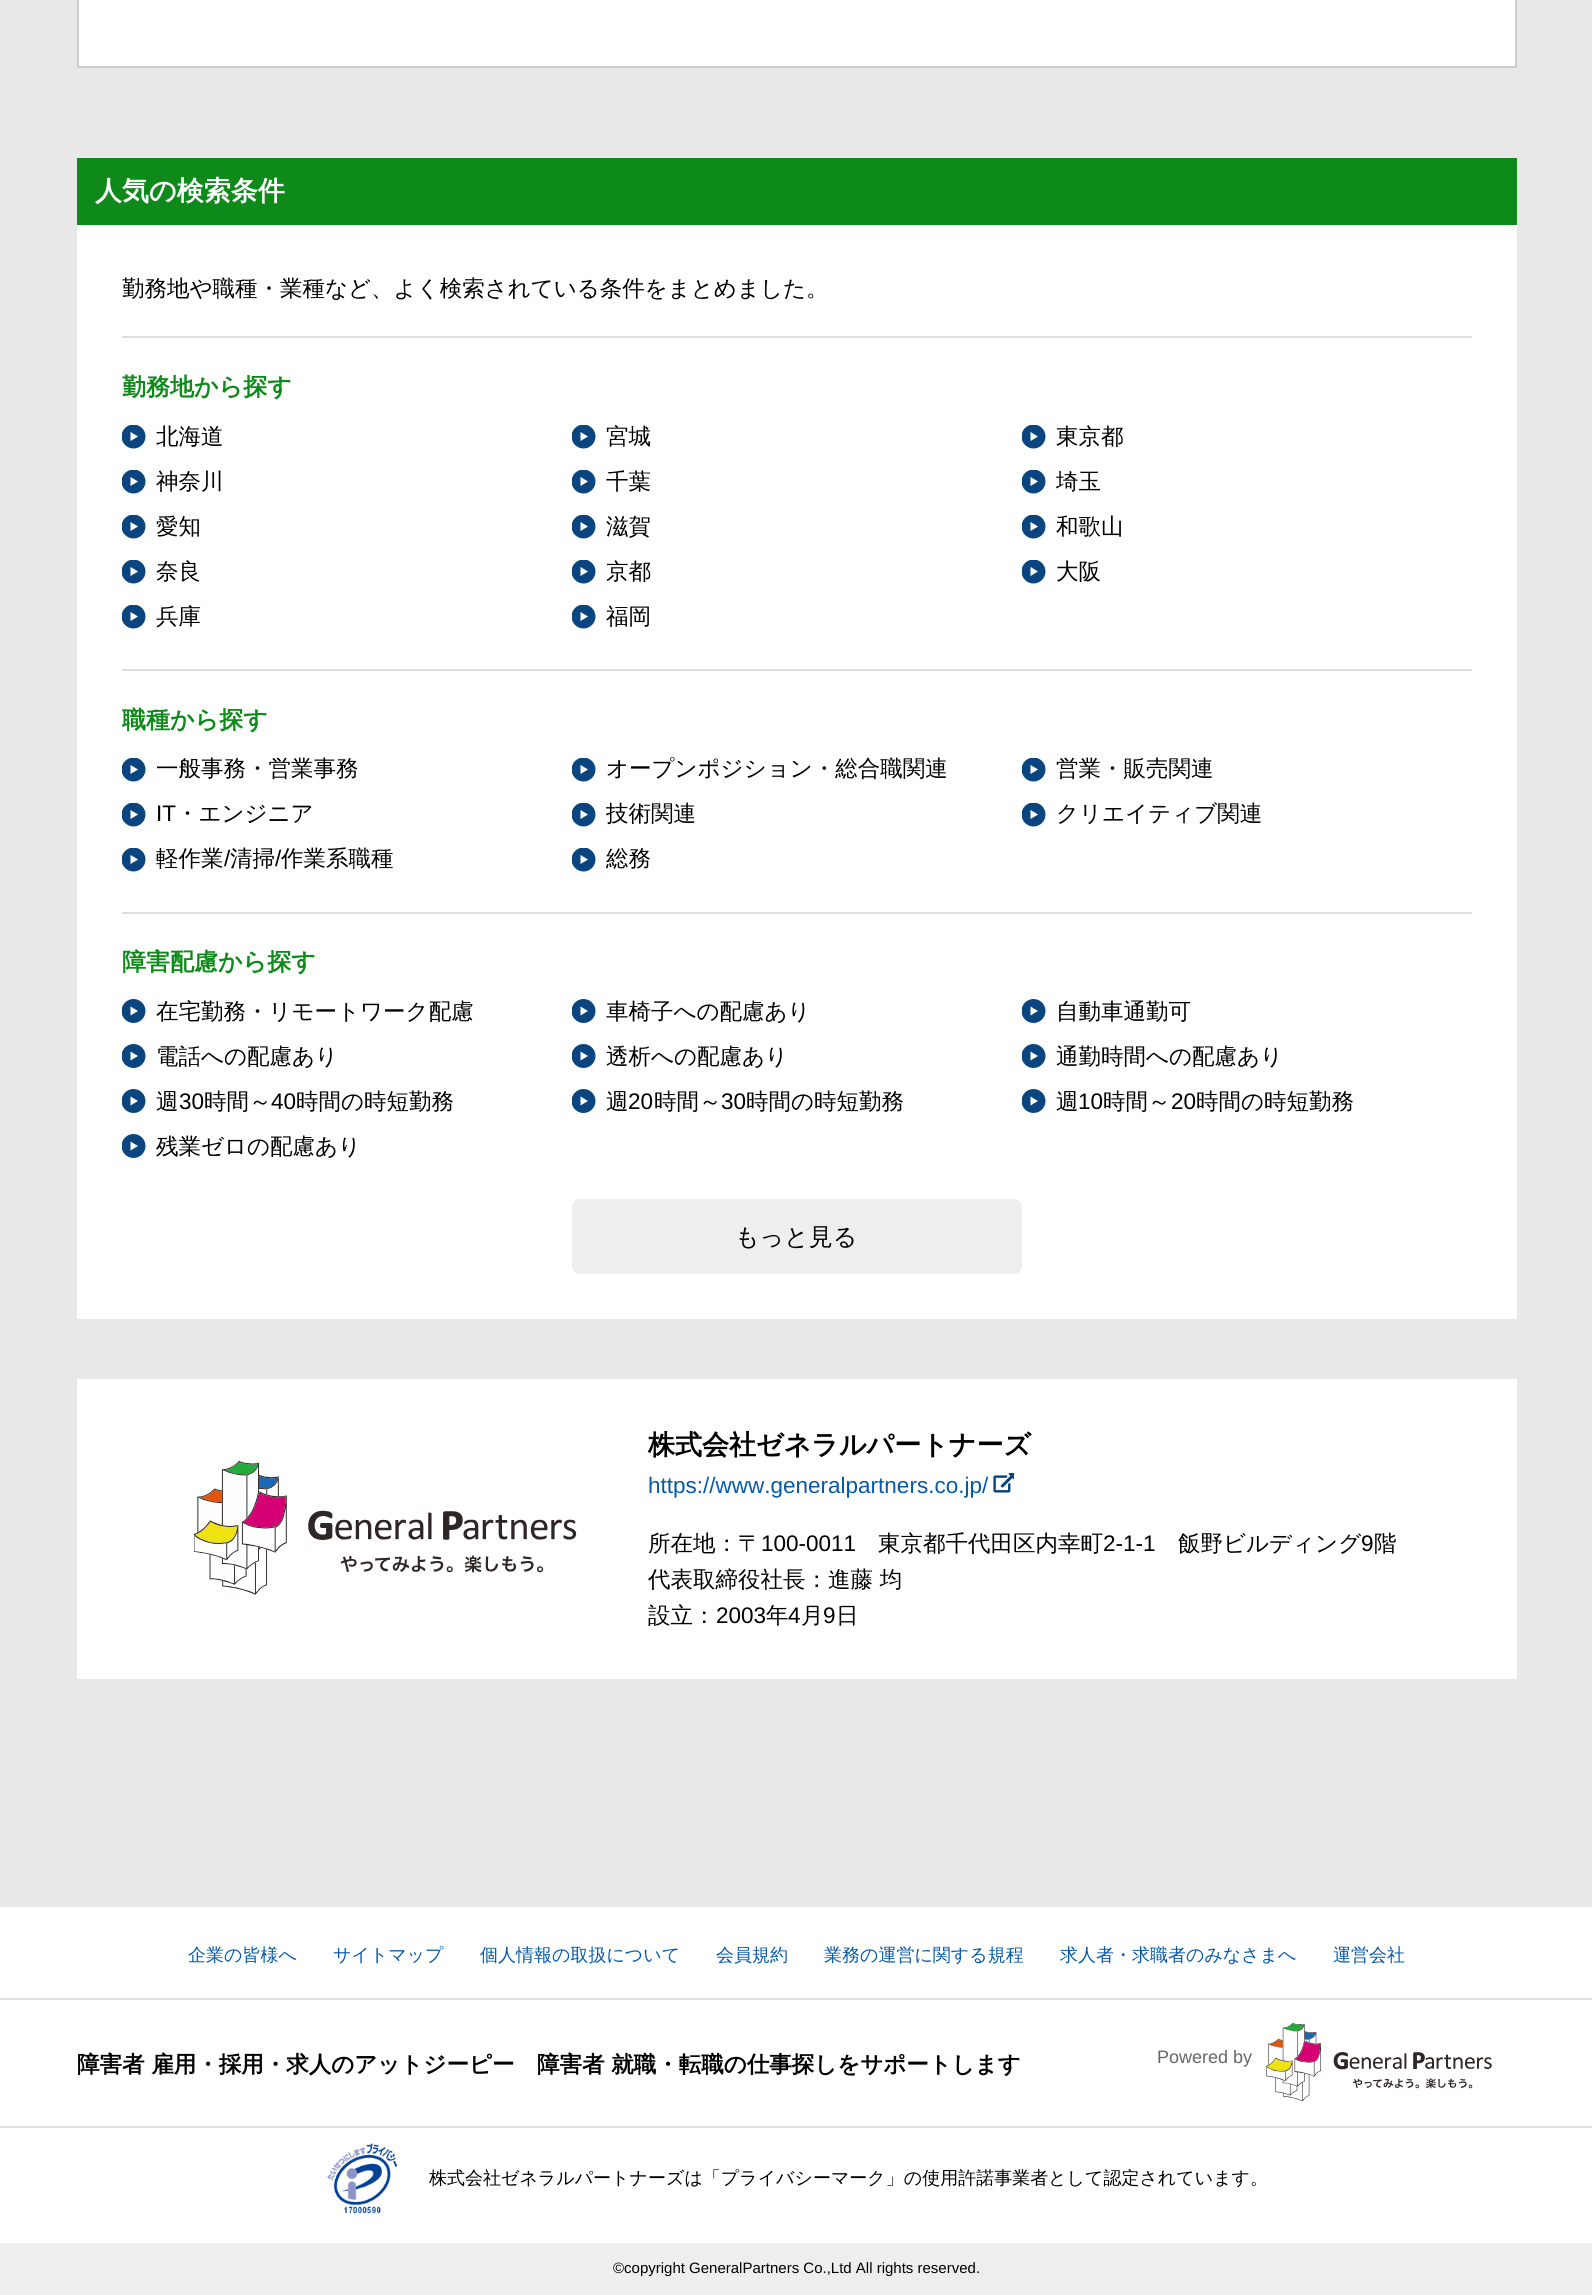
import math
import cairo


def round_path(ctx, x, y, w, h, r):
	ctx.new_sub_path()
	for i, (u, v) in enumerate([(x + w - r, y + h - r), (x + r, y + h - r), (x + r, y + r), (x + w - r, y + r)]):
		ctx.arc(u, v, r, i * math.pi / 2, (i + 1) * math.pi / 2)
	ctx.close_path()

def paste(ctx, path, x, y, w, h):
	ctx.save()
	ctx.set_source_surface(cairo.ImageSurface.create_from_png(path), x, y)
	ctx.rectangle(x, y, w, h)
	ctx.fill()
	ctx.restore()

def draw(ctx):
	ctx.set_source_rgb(1, 1, 1)
	ctx.paint()
	ctx.set_source_rgb(0.91, 0.91, 0.91)
	ctx.rectangle(0, 0, 1592, 1907)
	ctx.fill()
	ctx.set_source_rgb(1, 1, 1)
	ctx.rectangle(78, -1, 1438, 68)
	ctx.fill_preserve()
	ctx.set_source_rgb(0.8, 0.8, 0.8)
	ctx.stroke()
	ctx.set_source_rgb(1, 1, 1)
	ctx.rectangle(77, 225, 1440, 1094)
	ctx.fill()
	ctx.set_source_rgb(0.051, 0.541, 0.098)
	ctx.rectangle(77, 158, 1440, 67)
	ctx.fill()
	ctx.select_font_face('WenQuanYi Zen Hei', cairo.FONT_SLANT_NORMAL, cairo.FONT_WEIGHT_BOLD)
	ctx.set_font_size(27)
	ctx.set_source_rgb(1, 1, 1)
	ctx.move_to(95, 200)
	ctx.show_text('人気の検索条件')
	ctx.select_font_face('WenQuanYi Zen Hei Medium')
	ctx.set_font_size(22.5)
	ctx.set_source_rgb(0, 0, 0)
	ctx.move_to(122, 296)
	ctx.show_text('勤務地や職種・業種など、よく検索されている条件をまとめました。')
	ctx.set_source_rgb(0.867, 0.867, 0.867)
	ctx.rectangle(122, 336, 1350, 2)
	ctx.fill()
	ctx.select_font_face('WenQuanYi Zen Hei', cairo.FONT_SLANT_NORMAL, cairo.FONT_WEIGHT_BOLD)
	ctx.set_font_size(24)
	ctx.set_source_rgb(0.051, 0.541, 0.098)
	ctx.move_to(122, 395)
	ctx.show_text('勤務地から探す')
	ctx.save()
	ctx.rectangle(122, 425, 24, 24)
	ctx.clip()
	ctx.set_source_rgb(0.043, 0.271, 0.502)
	ctx.arc(133.5, 436.5, 12, 0, 2 * math.pi)
	ctx.fill()
	ctx.restore()
	ctx.set_source_rgb(1, 1, 1)
	ctx.set_fill_rule(cairo.FILL_RULE_EVEN_ODD)
	ctx.new_path()
	ctx.move_to(138, 436.5)
	ctx.line_to(130.5, 441)
	ctx.line_to(130.5, 432)
	ctx.close_path()
	ctx.fill()
	ctx.select_font_face('WenQuanYi Zen Hei Medium')
	ctx.set_font_size(22.5)
	ctx.set_source_rgb(0, 0, 0)
	ctx.move_to(156, 444)
	ctx.show_text('北海道')
	ctx.save()
	ctx.set_fill_rule(cairo.FILL_RULE_WINDING)
	ctx.rectangle(572, 425, 24, 24)
	ctx.clip()
	ctx.set_source_rgb(0.043, 0.271, 0.502)
	ctx.arc(583.5, 436.5, 12, 0, 2 * math.pi)
	ctx.fill()
	ctx.restore()
	ctx.set_source_rgb(1, 1, 1)
	ctx.new_path()
	ctx.move_to(588, 436.5)
	ctx.line_to(580.5, 441)
	ctx.line_to(580.5, 432)
	ctx.close_path()
	ctx.fill()
	ctx.set_source_rgb(0, 0, 0)
	ctx.move_to(606, 444)
	ctx.show_text('宮城')
	ctx.save()
	ctx.set_fill_rule(cairo.FILL_RULE_WINDING)
	ctx.rectangle(1022, 425, 24, 24)
	ctx.clip()
	ctx.set_source_rgb(0.043, 0.271, 0.502)
	ctx.arc(1033.5, 436.5, 12, 0, 2 * math.pi)
	ctx.fill()
	ctx.restore()
	ctx.set_source_rgb(1, 1, 1)
	ctx.new_path()
	ctx.move_to(1038, 436.5)
	ctx.line_to(1030.5, 441)
	ctx.line_to(1030.5, 432)
	ctx.close_path()
	ctx.fill()
	ctx.set_source_rgb(0, 0, 0)
	ctx.move_to(1056, 444)
	ctx.show_text('東京都')
	ctx.save()
	ctx.set_fill_rule(cairo.FILL_RULE_WINDING)
	ctx.rectangle(122, 470, 24, 24)
	ctx.clip()
	ctx.set_source_rgb(0.043, 0.271, 0.502)
	ctx.arc(133.5, 481.5, 12, 0, 2 * math.pi)
	ctx.fill()
	ctx.restore()
	ctx.set_source_rgb(1, 1, 1)
	ctx.new_path()
	ctx.move_to(138, 481.5)
	ctx.line_to(130.5, 486)
	ctx.line_to(130.5, 477)
	ctx.close_path()
	ctx.fill()
	ctx.set_source_rgb(0, 0, 0)
	ctx.move_to(156, 489)
	ctx.show_text('神奈川')
	ctx.save()
	ctx.set_fill_rule(cairo.FILL_RULE_WINDING)
	ctx.rectangle(572, 470, 24, 24)
	ctx.clip()
	ctx.set_source_rgb(0.043, 0.271, 0.502)
	ctx.arc(583.5, 481.5, 12, 0, 2 * math.pi)
	ctx.fill()
	ctx.restore()
	ctx.set_source_rgb(1, 1, 1)
	ctx.new_path()
	ctx.move_to(588, 481.5)
	ctx.line_to(580.5, 486)
	ctx.line_to(580.5, 477)
	ctx.close_path()
	ctx.fill()
	ctx.set_source_rgb(0, 0, 0)
	ctx.move_to(606, 489)
	ctx.show_text('千葉')
	ctx.save()
	ctx.set_fill_rule(cairo.FILL_RULE_WINDING)
	ctx.rectangle(1022, 470, 24, 24)
	ctx.clip()
	ctx.set_source_rgb(0.043, 0.271, 0.502)
	ctx.arc(1033.5, 481.5, 12, 0, 2 * math.pi)
	ctx.fill()
	ctx.restore()
	ctx.set_source_rgb(1, 1, 1)
	ctx.new_path()
	ctx.move_to(1038, 481.5)
	ctx.line_to(1030.5, 486)
	ctx.line_to(1030.5, 477)
	ctx.close_path()
	ctx.fill()
	ctx.set_source_rgb(0, 0, 0)
	ctx.move_to(1056, 489)
	ctx.show_text('埼玉')
	ctx.save()
	ctx.set_fill_rule(cairo.FILL_RULE_WINDING)
	ctx.rectangle(122, 515, 24, 24)
	ctx.clip()
	ctx.set_source_rgb(0.043, 0.271, 0.502)
	ctx.arc(133.5, 526.5, 12, 0, 2 * math.pi)
	ctx.fill()
	ctx.restore()
	ctx.set_source_rgb(1, 1, 1)
	ctx.new_path()
	ctx.move_to(138, 526.5)
	ctx.line_to(130.5, 531)
	ctx.line_to(130.5, 522)
	ctx.close_path()
	ctx.fill()
	ctx.set_source_rgb(0, 0, 0)
	ctx.move_to(156, 534)
	ctx.show_text('愛知')
	ctx.save()
	ctx.set_fill_rule(cairo.FILL_RULE_WINDING)
	ctx.rectangle(572, 515, 24, 24)
	ctx.clip()
	ctx.set_source_rgb(0.043, 0.271, 0.502)
	ctx.arc(583.5, 526.5, 12, 0, 2 * math.pi)
	ctx.fill()
	ctx.restore()
	ctx.set_source_rgb(1, 1, 1)
	ctx.new_path()
	ctx.move_to(588, 526.5)
	ctx.line_to(580.5, 531)
	ctx.line_to(580.5, 522)
	ctx.close_path()
	ctx.fill()
	ctx.set_source_rgb(0, 0, 0)
	ctx.move_to(606, 534)
	ctx.show_text('滋賀')
	ctx.save()
	ctx.set_fill_rule(cairo.FILL_RULE_WINDING)
	ctx.rectangle(1022, 515, 24, 24)
	ctx.clip()
	ctx.set_source_rgb(0.043, 0.271, 0.502)
	ctx.arc(1033.5, 526.5, 12, 0, 2 * math.pi)
	ctx.fill()
	ctx.restore()
	ctx.set_source_rgb(1, 1, 1)
	ctx.new_path()
	ctx.move_to(1038, 526.5)
	ctx.line_to(1030.5, 531)
	ctx.line_to(1030.5, 522)
	ctx.close_path()
	ctx.fill()
	ctx.set_source_rgb(0, 0, 0)
	ctx.move_to(1056, 534)
	ctx.show_text('和歌山')
	ctx.save()
	ctx.set_fill_rule(cairo.FILL_RULE_WINDING)
	ctx.rectangle(122, 560, 24, 24)
	ctx.clip()
	ctx.set_source_rgb(0.043, 0.271, 0.502)
	ctx.arc(133.5, 571.5, 12, 0, 2 * math.pi)
	ctx.fill()
	ctx.restore()
	ctx.set_source_rgb(1, 1, 1)
	ctx.new_path()
	ctx.move_to(138, 571.5)
	ctx.line_to(130.5, 576)
	ctx.line_to(130.5, 567)
	ctx.close_path()
	ctx.fill()
	ctx.set_source_rgb(0, 0, 0)
	ctx.move_to(156, 579)
	ctx.show_text('奈良')
	ctx.save()
	ctx.set_fill_rule(cairo.FILL_RULE_WINDING)
	ctx.rectangle(572, 560, 24, 24)
	ctx.clip()
	ctx.set_source_rgb(0.043, 0.271, 0.502)
	ctx.arc(583.5, 571.5, 12, 0, 2 * math.pi)
	ctx.fill()
	ctx.restore()
	ctx.set_source_rgb(1, 1, 1)
	ctx.new_path()
	ctx.move_to(588, 571.5)
	ctx.line_to(580.5, 576)
	ctx.line_to(580.5, 567)
	ctx.close_path()
	ctx.fill()
	ctx.set_source_rgb(0, 0, 0)
	ctx.move_to(606, 579)
	ctx.show_text('京都')
	ctx.save()
	ctx.set_fill_rule(cairo.FILL_RULE_WINDING)
	ctx.rectangle(1022, 560, 24, 24)
	ctx.clip()
	ctx.set_source_rgb(0.043, 0.271, 0.502)
	ctx.arc(1033.5, 571.5, 12, 0, 2 * math.pi)
	ctx.fill()
	ctx.restore()
	ctx.set_source_rgb(1, 1, 1)
	ctx.new_path()
	ctx.move_to(1038, 571.5)
	ctx.line_to(1030.5, 576)
	ctx.line_to(1030.5, 567)
	ctx.close_path()
	ctx.fill()
	ctx.set_source_rgb(0, 0, 0)
	ctx.move_to(1056, 579)
	ctx.show_text('大阪')
	ctx.save()
	ctx.set_fill_rule(cairo.FILL_RULE_WINDING)
	ctx.rectangle(122, 605, 24, 24)
	ctx.clip()
	ctx.set_source_rgb(0.043, 0.271, 0.502)
	ctx.arc(133.5, 616.5, 12, 0, 2 * math.pi)
	ctx.fill()
	ctx.restore()
	ctx.set_source_rgb(1, 1, 1)
	ctx.new_path()
	ctx.move_to(138, 616.5)
	ctx.line_to(130.5, 621)
	ctx.line_to(130.5, 612)
	ctx.close_path()
	ctx.fill()
	ctx.set_source_rgb(0, 0, 0)
	ctx.move_to(156, 624)
	ctx.show_text('兵庫')
	ctx.save()
	ctx.set_fill_rule(cairo.FILL_RULE_WINDING)
	ctx.rectangle(572, 605, 24, 24)
	ctx.clip()
	ctx.set_source_rgb(0.043, 0.271, 0.502)
	ctx.arc(583.5, 616.5, 12, 0, 2 * math.pi)
	ctx.fill()
	ctx.restore()
	ctx.set_source_rgb(1, 1, 1)
	ctx.new_path()
	ctx.move_to(588, 616.5)
	ctx.line_to(580.5, 621)
	ctx.line_to(580.5, 612)
	ctx.close_path()
	ctx.fill()
	ctx.set_source_rgb(0, 0, 0)
	ctx.move_to(606, 624)
	ctx.show_text('福岡')
	ctx.set_source_rgb(0.867, 0.867, 0.867)
	ctx.rectangle(122, 669, 1350, 2)
	ctx.fill()
	ctx.select_font_face('WenQuanYi Zen Hei', cairo.FONT_SLANT_NORMAL, cairo.FONT_WEIGHT_BOLD)
	ctx.set_font_size(24)
	ctx.set_source_rgb(0.051, 0.541, 0.098)
	ctx.move_to(122, 728)
	ctx.show_text('職種から探す')
	ctx.save()
	ctx.set_fill_rule(cairo.FILL_RULE_WINDING)
	ctx.rectangle(122, 758, 24, 24)
	ctx.clip()
	ctx.set_source_rgb(0.043, 0.271, 0.502)
	ctx.arc(133.5, 769.5, 12, 0, 2 * math.pi)
	ctx.fill()
	ctx.restore()
	ctx.set_source_rgb(1, 1, 1)
	ctx.new_path()
	ctx.move_to(138, 769.5)
	ctx.line_to(130.5, 774)
	ctx.line_to(130.5, 765)
	ctx.close_path()
	ctx.fill()
	ctx.select_font_face('WenQuanYi Zen Hei Medium')
	ctx.set_font_size(22.5)
	ctx.set_source_rgb(0, 0, 0)
	ctx.move_to(156, 776)
	ctx.show_text('一般事務・営業事務')
	ctx.save()
	ctx.set_fill_rule(cairo.FILL_RULE_WINDING)
	ctx.rectangle(572, 758, 24, 24)
	ctx.clip()
	ctx.set_source_rgb(0.043, 0.271, 0.502)
	ctx.arc(583.5, 769.5, 12, 0, 2 * math.pi)
	ctx.fill()
	ctx.restore()
	ctx.set_source_rgb(1, 1, 1)
	ctx.new_path()
	ctx.move_to(588, 769.5)
	ctx.line_to(580.5, 774)
	ctx.line_to(580.5, 765)
	ctx.close_path()
	ctx.fill()
	ctx.set_source_rgb(0, 0, 0)
	ctx.move_to(606, 776)
	ctx.show_text('オープンポジション・総合職関連')
	ctx.save()
	ctx.set_fill_rule(cairo.FILL_RULE_WINDING)
	ctx.rectangle(1022, 758, 24, 24)
	ctx.clip()
	ctx.set_source_rgb(0.043, 0.271, 0.502)
	ctx.arc(1033.5, 769.5, 12, 0, 2 * math.pi)
	ctx.fill()
	ctx.restore()
	ctx.set_source_rgb(1, 1, 1)
	ctx.new_path()
	ctx.move_to(1038, 769.5)
	ctx.line_to(1030.5, 774)
	ctx.line_to(1030.5, 765)
	ctx.close_path()
	ctx.fill()
	ctx.set_source_rgb(0, 0, 0)
	ctx.move_to(1056, 776)
	ctx.show_text('営業・販売関連')
	ctx.save()
	ctx.set_fill_rule(cairo.FILL_RULE_WINDING)
	ctx.rectangle(122, 803, 24, 24)
	ctx.clip()
	ctx.set_source_rgb(0.043, 0.271, 0.502)
	ctx.arc(133.5, 814.5, 12, 0, 2 * math.pi)
	ctx.fill()
	ctx.restore()
	ctx.set_source_rgb(1, 1, 1)
	ctx.new_path()
	ctx.move_to(138, 814.5)
	ctx.line_to(130.5, 819)
	ctx.line_to(130.5, 810)
	ctx.close_path()
	ctx.fill()
	ctx.select_font_face('Liberation Sans')
	ctx.set_source_rgb(0, 0, 0)
	ctx.move_to(156, 821)
	ctx.show_text('IT')
	ctx.select_font_face('WenQuanYi Zen Hei Medium')
	ctx.move_to(176, 821)
	ctx.show_text('・エンジニア')
	ctx.save()
	ctx.set_fill_rule(cairo.FILL_RULE_WINDING)
	ctx.rectangle(572, 803, 24, 24)
	ctx.clip()
	ctx.set_source_rgb(0.043, 0.271, 0.502)
	ctx.arc(583.5, 814.5, 12, 0, 2 * math.pi)
	ctx.fill()
	ctx.restore()
	ctx.set_source_rgb(1, 1, 1)
	ctx.new_path()
	ctx.move_to(588, 814.5)
	ctx.line_to(580.5, 819)
	ctx.line_to(580.5, 810)
	ctx.close_path()
	ctx.fill()
	ctx.set_source_rgb(0, 0, 0)
	ctx.move_to(606, 821)
	ctx.show_text('技術関連')
	ctx.save()
	ctx.set_fill_rule(cairo.FILL_RULE_WINDING)
	ctx.rectangle(1022, 803, 24, 24)
	ctx.clip()
	ctx.set_source_rgb(0.043, 0.271, 0.502)
	ctx.arc(1033.5, 814.5, 12, 0, 2 * math.pi)
	ctx.fill()
	ctx.restore()
	ctx.set_source_rgb(1, 1, 1)
	ctx.new_path()
	ctx.move_to(1038, 814.5)
	ctx.line_to(1030.5, 819)
	ctx.line_to(1030.5, 810)
	ctx.close_path()
	ctx.fill()
	ctx.set_source_rgb(0, 0, 0)
	ctx.move_to(1056, 821)
	ctx.show_text('クリエイティブ関連')
	ctx.save()
	ctx.set_fill_rule(cairo.FILL_RULE_WINDING)
	ctx.rectangle(122, 848, 24, 24)
	ctx.clip()
	ctx.set_source_rgb(0.043, 0.271, 0.502)
	ctx.arc(133.5, 859.5, 12, 0, 2 * math.pi)
	ctx.fill()
	ctx.restore()
	ctx.set_source_rgb(1, 1, 1)
	ctx.new_path()
	ctx.move_to(138, 859.5)
	ctx.line_to(130.5, 864)
	ctx.line_to(130.5, 855)
	ctx.close_path()
	ctx.fill()
	ctx.set_source_rgb(0, 0, 0)
	ctx.move_to(156, 866)
	ctx.show_text('軽作業')
	ctx.select_font_face('Liberation Sans')
	ctx.move_to(224, 866)
	ctx.show_text('/')
	ctx.select_font_face('WenQuanYi Zen Hei Medium')
	ctx.move_to(230, 866)
	ctx.show_text('清掃')
	ctx.select_font_face('Liberation Sans')
	ctx.move_to(275, 866)
	ctx.show_text('/')
	ctx.select_font_face('WenQuanYi Zen Hei Medium')
	ctx.move_to(281, 866)
	ctx.show_text('作業系職種')
	ctx.save()
	ctx.set_fill_rule(cairo.FILL_RULE_WINDING)
	ctx.rectangle(572, 848, 24, 24)
	ctx.clip()
	ctx.set_source_rgb(0.043, 0.271, 0.502)
	ctx.arc(583.5, 859.5, 12, 0, 2 * math.pi)
	ctx.fill()
	ctx.restore()
	ctx.set_source_rgb(1, 1, 1)
	ctx.new_path()
	ctx.move_to(588, 859.5)
	ctx.line_to(580.5, 864)
	ctx.line_to(580.5, 855)
	ctx.close_path()
	ctx.fill()
	ctx.set_source_rgb(0, 0, 0)
	ctx.move_to(606, 866)
	ctx.show_text('総務')
	ctx.set_source_rgb(0.867, 0.867, 0.867)
	ctx.rectangle(122, 912, 1350, 2)
	ctx.fill()
	ctx.select_font_face('WenQuanYi Zen Hei', cairo.FONT_SLANT_NORMAL, cairo.FONT_WEIGHT_BOLD)
	ctx.set_font_size(24)
	ctx.set_source_rgb(0.051, 0.541, 0.098)
	ctx.move_to(122, 970)
	ctx.show_text('障害配慮から探す')
	ctx.save()
	ctx.set_fill_rule(cairo.FILL_RULE_WINDING)
	ctx.rectangle(122, 999, 24, 24)
	ctx.clip()
	ctx.set_source_rgb(0.043, 0.271, 0.502)
	ctx.arc(133.5, 1011, 12, 0, 2 * math.pi)
	ctx.fill()
	ctx.restore()
	ctx.set_source_rgb(1, 1, 1)
	ctx.new_path()
	ctx.move_to(138, 1011)
	ctx.line_to(130.5, 1015.5)
	ctx.line_to(130.5, 1006.5)
	ctx.close_path()
	ctx.fill()
	ctx.select_font_face('WenQuanYi Zen Hei Medium')
	ctx.set_font_size(22.5)
	ctx.set_source_rgb(0, 0, 0)
	ctx.move_to(156, 1019)
	ctx.show_text('在宅勤務・リモートワーク配慮')
	ctx.save()
	ctx.set_fill_rule(cairo.FILL_RULE_WINDING)
	ctx.rectangle(572, 999, 24, 24)
	ctx.clip()
	ctx.set_source_rgb(0.043, 0.271, 0.502)
	ctx.arc(583.5, 1011, 12, 0, 2 * math.pi)
	ctx.fill()
	ctx.restore()
	ctx.set_source_rgb(1, 1, 1)
	ctx.new_path()
	ctx.move_to(588, 1011)
	ctx.line_to(580.5, 1015.5)
	ctx.line_to(580.5, 1006.5)
	ctx.close_path()
	ctx.fill()
	ctx.set_source_rgb(0, 0, 0)
	ctx.move_to(606, 1019)
	ctx.show_text('車椅子への配慮あり')
	ctx.save()
	ctx.set_fill_rule(cairo.FILL_RULE_WINDING)
	ctx.rectangle(1022, 999, 24, 24)
	ctx.clip()
	ctx.set_source_rgb(0.043, 0.271, 0.502)
	ctx.arc(1033.5, 1011, 12, 0, 2 * math.pi)
	ctx.fill()
	ctx.restore()
	ctx.set_source_rgb(1, 1, 1)
	ctx.new_path()
	ctx.move_to(1038, 1011)
	ctx.line_to(1030.5, 1015.5)
	ctx.line_to(1030.5, 1006.5)
	ctx.close_path()
	ctx.fill()
	ctx.set_source_rgb(0, 0, 0)
	ctx.move_to(1056, 1019)
	ctx.show_text('自動車通勤可')
	ctx.save()
	ctx.set_fill_rule(cairo.FILL_RULE_WINDING)
	ctx.rectangle(122, 1044, 24, 24)
	ctx.clip()
	ctx.set_source_rgb(0.043, 0.271, 0.502)
	ctx.arc(133.5, 1056, 12, 0, 2 * math.pi)
	ctx.fill()
	ctx.restore()
	ctx.set_source_rgb(1, 1, 1)
	ctx.new_path()
	ctx.move_to(138, 1056)
	ctx.line_to(130.5, 1060.5)
	ctx.line_to(130.5, 1051.5)
	ctx.close_path()
	ctx.fill()
	ctx.set_source_rgb(0, 0, 0)
	ctx.move_to(156, 1064)
	ctx.show_text('電話への配慮あり')
	ctx.save()
	ctx.set_fill_rule(cairo.FILL_RULE_WINDING)
	ctx.rectangle(572, 1044, 24, 24)
	ctx.clip()
	ctx.set_source_rgb(0.043, 0.271, 0.502)
	ctx.arc(583.5, 1056, 12, 0, 2 * math.pi)
	ctx.fill()
	ctx.restore()
	ctx.set_source_rgb(1, 1, 1)
	ctx.new_path()
	ctx.move_to(588, 1056)
	ctx.line_to(580.5, 1060.5)
	ctx.line_to(580.5, 1051.5)
	ctx.close_path()
	ctx.fill()
	ctx.set_source_rgb(0, 0, 0)
	ctx.move_to(606, 1064)
	ctx.show_text('透析への配慮あり')
	ctx.save()
	ctx.set_fill_rule(cairo.FILL_RULE_WINDING)
	ctx.rectangle(1022, 1044, 24, 24)
	ctx.clip()
	ctx.set_source_rgb(0.043, 0.271, 0.502)
	ctx.arc(1033.5, 1056, 12, 0, 2 * math.pi)
	ctx.fill()
	ctx.restore()
	ctx.set_source_rgb(1, 1, 1)
	ctx.new_path()
	ctx.move_to(1038, 1056)
	ctx.line_to(1030.5, 1060.5)
	ctx.line_to(1030.5, 1051.5)
	ctx.close_path()
	ctx.fill()
	ctx.set_source_rgb(0, 0, 0)
	ctx.move_to(1056, 1064)
	ctx.show_text('通勤時間への配慮あり')
	ctx.save()
	ctx.set_fill_rule(cairo.FILL_RULE_WINDING)
	ctx.rectangle(122, 1089, 24, 24)
	ctx.clip()
	ctx.set_source_rgb(0.043, 0.271, 0.502)
	ctx.arc(133.5, 1101, 12, 0, 2 * math.pi)
	ctx.fill()
	ctx.restore()
	ctx.set_source_rgb(1, 1, 1)
	ctx.new_path()
	ctx.move_to(138, 1101)
	ctx.line_to(130.5, 1105.5)
	ctx.line_to(130.5, 1096.5)
	ctx.close_path()
	ctx.fill()
	ctx.set_source_rgb(0, 0, 0)
	ctx.move_to(156, 1109)
	ctx.show_text('週')
	ctx.select_font_face('Liberation Sans')
	ctx.move_to(179, 1109)
	ctx.show_text('30')
	ctx.select_font_face('WenQuanYi Zen Hei Medium')
	ctx.move_to(204, 1109)
	ctx.show_text('時間～')
	ctx.select_font_face('Liberation Sans')
	ctx.move_to(271, 1109)
	ctx.show_text('40')
	ctx.select_font_face('WenQuanYi Zen Hei Medium')
	ctx.move_to(296, 1109)
	ctx.show_text('時間の時短勤務')
	ctx.save()
	ctx.set_fill_rule(cairo.FILL_RULE_WINDING)
	ctx.rectangle(572, 1089, 24, 24)
	ctx.clip()
	ctx.set_source_rgb(0.043, 0.271, 0.502)
	ctx.arc(583.5, 1101, 12, 0, 2 * math.pi)
	ctx.fill()
	ctx.restore()
	ctx.set_source_rgb(1, 1, 1)
	ctx.new_path()
	ctx.move_to(588, 1101)
	ctx.line_to(580.5, 1105.5)
	ctx.line_to(580.5, 1096.5)
	ctx.close_path()
	ctx.fill()
	ctx.set_source_rgb(0, 0, 0)
	ctx.move_to(606, 1109)
	ctx.show_text('週')
	ctx.select_font_face('Liberation Sans')
	ctx.move_to(628, 1109)
	ctx.show_text('20')
	ctx.select_font_face('WenQuanYi Zen Hei Medium')
	ctx.move_to(654, 1109)
	ctx.show_text('時間～')
	ctx.select_font_face('Liberation Sans')
	ctx.move_to(721, 1109)
	ctx.show_text('30')
	ctx.select_font_face('WenQuanYi Zen Hei Medium')
	ctx.move_to(746, 1109)
	ctx.show_text('時間の時短勤務')
	ctx.save()
	ctx.set_fill_rule(cairo.FILL_RULE_WINDING)
	ctx.rectangle(1022, 1089, 24, 24)
	ctx.clip()
	ctx.set_source_rgb(0.043, 0.271, 0.502)
	ctx.arc(1033.5, 1101, 12, 0, 2 * math.pi)
	ctx.fill()
	ctx.restore()
	ctx.set_source_rgb(1, 1, 1)
	ctx.new_path()
	ctx.move_to(1038, 1101)
	ctx.line_to(1030.5, 1105.5)
	ctx.line_to(1030.5, 1096.5)
	ctx.close_path()
	ctx.fill()
	ctx.set_source_rgb(0, 0, 0)
	ctx.move_to(1056, 1109)
	ctx.show_text('週')
	ctx.select_font_face('Liberation Sans')
	ctx.move_to(1078, 1109)
	ctx.show_text('10')
	ctx.select_font_face('WenQuanYi Zen Hei Medium')
	ctx.move_to(1103, 1109)
	ctx.show_text('時間～')
	ctx.select_font_face('Liberation Sans')
	ctx.move_to(1171, 1109)
	ctx.show_text('20')
	ctx.select_font_face('WenQuanYi Zen Hei Medium')
	ctx.move_to(1196, 1109)
	ctx.show_text('時間の時短勤務')
	ctx.save()
	ctx.set_fill_rule(cairo.FILL_RULE_WINDING)
	ctx.rectangle(122, 1134, 24, 24)
	ctx.clip()
	ctx.set_source_rgb(0.043, 0.271, 0.502)
	ctx.arc(133.5, 1146, 12, 0, 2 * math.pi)
	ctx.fill()
	ctx.restore()
	ctx.set_source_rgb(1, 1, 1)
	ctx.new_path()
	ctx.move_to(138, 1146)
	ctx.line_to(130.5, 1150.5)
	ctx.line_to(130.5, 1141.5)
	ctx.close_path()
	ctx.fill()
	ctx.set_source_rgb(0, 0, 0)
	ctx.move_to(156, 1154)
	ctx.show_text('残業ゼロの配慮あり')
	ctx.set_source_rgb(0.933, 0.933, 0.933)
	round_path(ctx, 573, 1200, 448, 73, 7)
	ctx.fill_preserve()
	ctx.stroke()
	ctx.set_font_size(24)
	ctx.set_source_rgb(0, 0, 0)
	ctx.move_to(735, 1245)
	ctx.show_text('もっと見る')
	ctx.set_source_rgb(1, 1, 1)
	ctx.rectangle(77, 1379, 1440, 300)
	ctx.fill()
	paste(ctx, 'media/1.png', 194, 1461, 383, 134)
	ctx.select_font_face('WenQuanYi Zen Hei', cairo.FONT_SLANT_NORMAL, cairo.FONT_WEIGHT_BOLD)
	ctx.set_font_size(27)
	ctx.set_source_rgb(0, 0, 0)
	ctx.move_to(648, 1454)
	ctx.show_text('株式会社ゼネラルパートナーズ')
	ctx.select_font_face('Liberation Sans')
	ctx.set_font_size(22.5)
	ctx.set_source_rgb(0.02, 0.349, 0.659)
	ctx.move_to(648, 1493)
	ctx.show_text('https://www.generalpartners.co.jp/')
	paste(ctx, 'media/2.png', 993, 1473, 21, 20)
	ctx.select_font_face('WenQuanYi Zen Hei Medium')
	ctx.set_source_rgb(0, 0, 0)
	ctx.move_to(648, 1551)
	ctx.show_text('所在地：〒')
	ctx.select_font_face('Liberation Sans')
	ctx.move_to(761, 1551)
	ctx.show_text('100-0011')
	ctx.select_font_face('WenQuanYi Zen Hei Medium')
	ctx.move_to(878, 1551)
	ctx.show_text('東京都千代田区内幸町')
	ctx.select_font_face('Liberation Sans')
	ctx.move_to(1103, 1551)
	ctx.show_text('2-1-1')
	ctx.select_font_face('WenQuanYi Zen Hei Medium')
	ctx.move_to(1178, 1551)
	ctx.show_text('飯野ビルディング')
	ctx.select_font_face('Liberation Sans')
	ctx.move_to(1361, 1551)
	ctx.show_text('9')
	ctx.select_font_face('WenQuanYi Zen Hei Medium')
	for x, y, s in [
		(1374, 1551, '階'),
		(648, 1587, '代表取締役社長：進藤 均'),
		(648, 1623, '設立：'),
	]:
		ctx.move_to(x, y)
		ctx.show_text(s)
	ctx.select_font_face('Liberation Sans')
	ctx.move_to(716, 1623)
	ctx.show_text('2003')
	ctx.select_font_face('WenQuanYi Zen Hei Medium')
	ctx.move_to(766, 1623)
	ctx.show_text('年')
	ctx.select_font_face('Liberation Sans')
	ctx.move_to(788, 1623)
	ctx.show_text('4')
	ctx.select_font_face('WenQuanYi Zen Hei Medium')
	ctx.move_to(801, 1623)
	ctx.show_text('月')
	ctx.select_font_face('Liberation Sans')
	ctx.move_to(823, 1623)
	ctx.show_text('9')
	ctx.select_font_face('WenQuanYi Zen Hei Medium')
	ctx.move_to(836, 1623)
	ctx.show_text('日')
	ctx.set_font_size(18)
	ctx.set_source_rgb(0.02, 0.349, 0.659)
	for x, y, s in [
		(188, 1961, '企業の皆様へ'),
		(333, 1961, 'サイトマップ'),
		(480, 1961, '個人情報の取扱について'),
		(716, 1961, '会員規約'),
		(824, 1961, '業務の運営に関する規程'),
		(1060, 1961, '求人者・求職者のみなさまへ'),
		(1333, 1961, '運営会社'),
	]:
		ctx.move_to(x, y)
		ctx.show_text(s)
	ctx.set_source_rgb(0.867, 0.867, 0.867)
	ctx.rectangle(0, 1998, 1592, 2)
	ctx.fill()
	ctx.select_font_face('WenQuanYi Zen Hei', cairo.FONT_SLANT_NORMAL, cairo.FONT_WEIGHT_BOLD)
	ctx.set_font_size(22.5)
	ctx.set_source_rgb(0, 0, 0)
	ctx.move_to(77, 2072)
	ctx.show_text('障害者 雇用・採用・求人のアットジーピー　障害者 就職・転職の仕事探しをサポートします')
	ctx.select_font_face('Liberation Sans')
	ctx.set_font_size(18)
	ctx.set_source_rgb(0.4, 0.4, 0.4)
	ctx.move_to(1157, 2063)
	ctx.show_text('Powered by')
	paste(ctx, 'media/3.png', 1266, 2023, 226, 79)
	ctx.set_source_rgb(0.867, 0.867, 0.867)
	ctx.rectangle(0, 2126, 1592, 2)
	ctx.fill()
	paste(ctx, 'media/4.png', 327, 2143, 71, 71)
	ctx.select_font_face('WenQuanYi Zen Hei Medium')
	ctx.set_source_rgb(0, 0, 0)
	ctx.move_to(429, 2184)
	ctx.show_text('株式会社ゼネラルパートナーズは「プライバシーマーク」の使用許諾事業者として認定されています。')
	ctx.set_source_rgb(0.933, 0.933, 0.933)
	ctx.rectangle(0, 2243, 1592, 52)
	ctx.fill()
	ctx.select_font_face('Liberation Sans')
	ctx.set_font_size(15)
	ctx.set_source_rgb(0, 0, 0)
	ctx.move_to(613, 2273)
	ctx.show_text('©copyright GeneralPartners Co.,Ltd All rights reserved.')


surface = cairo.ImageSurface(cairo.FORMAT_RGB24, 1592, 2295)
ctx = cairo.Context(surface)
options = cairo.FontOptions()
options.set_hint_metrics(cairo.HINT_METRICS_OFF)
options.set_hint_style(cairo.HINT_STYLE_NONE)
ctx.set_font_options(options)
ctx.set_miter_limit(4)
draw(ctx)
surface.write_to_png('image.png')
